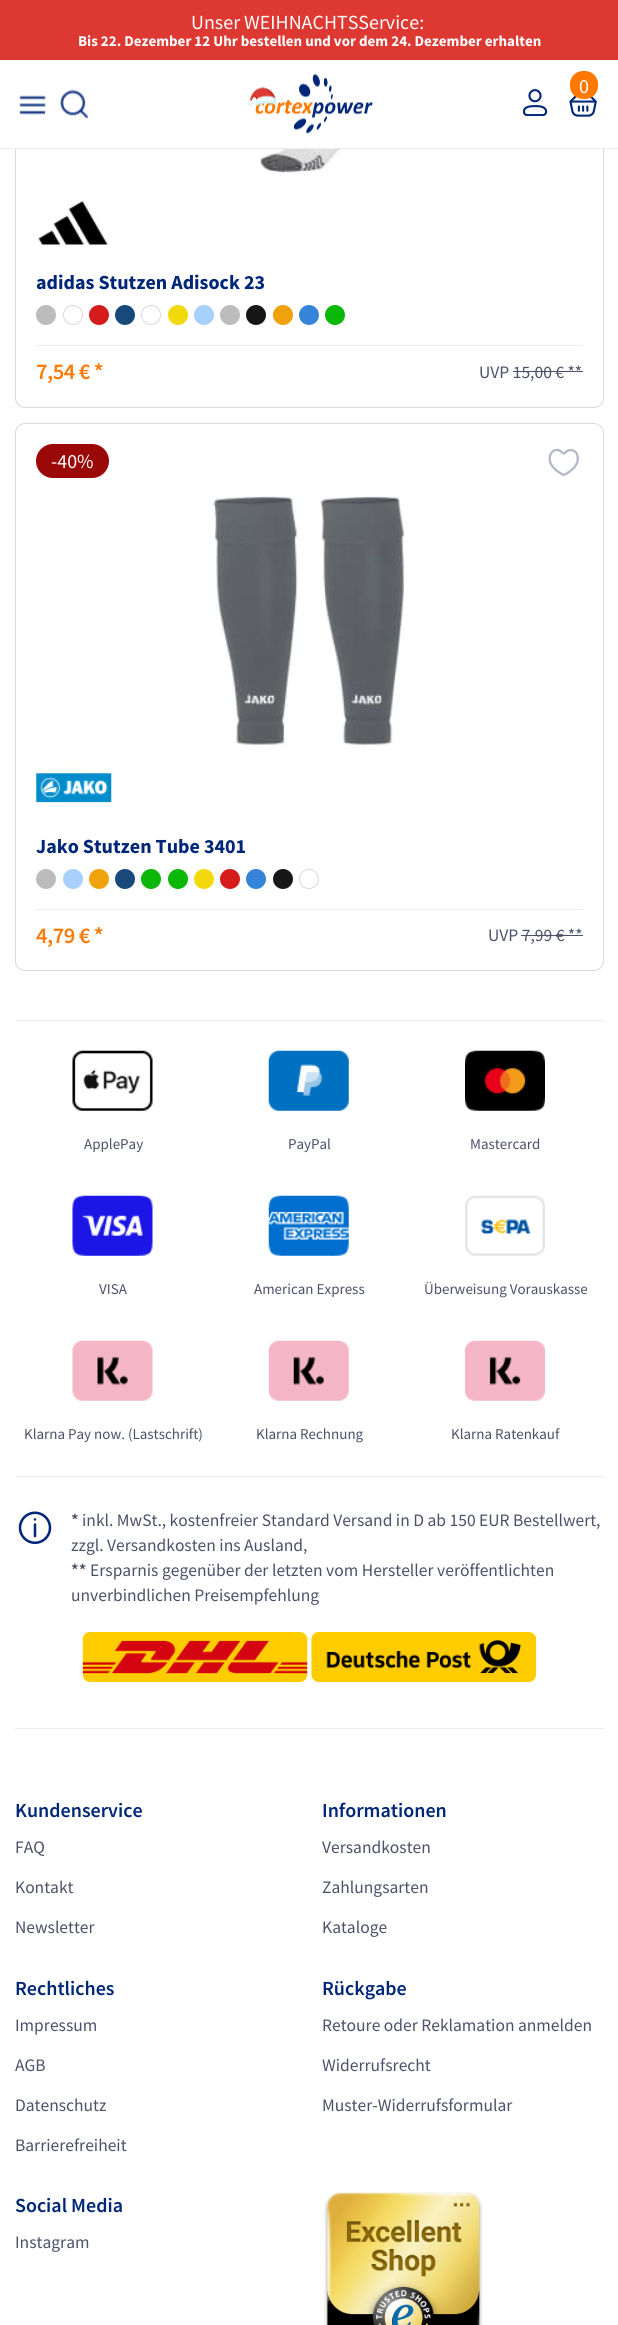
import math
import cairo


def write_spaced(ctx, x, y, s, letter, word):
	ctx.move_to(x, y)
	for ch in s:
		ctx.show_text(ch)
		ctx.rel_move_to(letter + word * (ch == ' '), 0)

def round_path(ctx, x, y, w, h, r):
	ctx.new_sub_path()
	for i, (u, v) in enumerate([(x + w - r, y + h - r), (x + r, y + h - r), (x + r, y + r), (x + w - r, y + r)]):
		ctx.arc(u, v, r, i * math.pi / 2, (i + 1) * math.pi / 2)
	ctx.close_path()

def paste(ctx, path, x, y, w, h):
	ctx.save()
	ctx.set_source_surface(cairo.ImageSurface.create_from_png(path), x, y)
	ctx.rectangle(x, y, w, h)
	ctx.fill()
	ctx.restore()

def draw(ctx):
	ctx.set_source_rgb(1, 1, 1)
	ctx.paint()
	round_path(ctx, 15.5, -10.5, 588, 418, 9.5)
	ctx.set_source_rgb(0.843, 0.851, 0.878)
	ctx.set_line_width(1)
	ctx.stroke()
	ctx.set_source_rgb(1, 1, 1)
	ctx.rectangle(15, 60, 589, 88)
	ctx.fill()
	ctx.set_source_rgb(0.922, 0.925, 0.937)
	ctx.rectangle(0, 148, 618, 1)
	ctx.fill()
	ctx.set_source_rgb(0.871, 0.22, 0.196)
	ctx.rectangle(0, 0, 618, 60)
	ctx.fill()
	ctx.select_font_face('Source Sans Pro')
	ctx.set_font_size(20)
	ctx.set_source_rgb(1, 1, 1)
	ctx.move_to(191, 29)
	ctx.show_text('Unser WEIHNACHTSService:')
	ctx.select_font_face('Source Sans Pro', cairo.FONT_SLANT_NORMAL, cairo.FONT_WEIGHT_BOLD)
	ctx.set_font_size(15)
	ctx.move_to(78, 46)
	ctx.show_text('Bis 22. Dezember 12 Uhr bestellen und vor dem 24. Dezember erhalten')
	paste(ctx, 'media/1.png', 247, 74, 126, 60)
	paste(ctx, 'media/2.png', 569, 95, 28, 22)
	ctx.set_source_rgb(1, 0.471, 0)
	round_path(ctx, 570, 71, 28, 28, 13)
	ctx.fill()
	ctx.select_font_face('Source Sans Pro')
	ctx.set_font_size(20)
	ctx.set_source_rgb(1, 1, 1)
	ctx.move_to(579, 93)
	ctx.show_text('0')
	paste(ctx, 'media/3.png', 523, 89, 25, 27)
	paste(ctx, 'media/4.png', 19, 95, 28, 20)
	paste(ctx, 'media/5.png', 60, 89, 29, 30)
	paste(ctx, 'media/6.png', 260, 149, 101, 24)
	paste(ctx, 'media/7.png', 38, 200, 70, 45)
	ctx.select_font_face('Source Sans Pro', cairo.FONT_SLANT_NORMAL, cairo.FONT_WEIGHT_BOLD)
	ctx.set_source_rgb(0, 0.149, 0.471)
	ctx.move_to(36, 289)
	ctx.show_text('adidas Stutzen Adisock 23')
	ctx.set_source_rgb(0.737, 0.737, 0.737)
	ctx.new_path()
	ctx.arc(46, 315, 10, 0, 2 * math.pi)
	ctx.fill()
	ctx.arc(73, 315, 9.5, 0, 2 * math.pi)
	ctx.set_source_rgb(0.843, 0.851, 0.878)
	ctx.stroke()
	ctx.set_source_rgb(0.839, 0.106, 0.106)
	ctx.arc(99, 315, 10, 0, 2 * math.pi)
	ctx.fill()
	ctx.set_source_rgb(0.098, 0.282, 0.478)
	ctx.arc(125, 315, 10, 0, 2 * math.pi)
	ctx.fill()
	ctx.arc(151, 315, 9.5, 0, 2 * math.pi)
	ctx.set_source_rgb(0.843, 0.851, 0.878)
	ctx.stroke()
	ctx.set_source_rgb(0.945, 0.851, 0.043)
	ctx.arc(178, 315, 10, 0, 2 * math.pi)
	ctx.fill()
	ctx.set_source_rgb(0.655, 0.816, 0.988)
	ctx.arc(204, 315, 10, 0, 2 * math.pi)
	ctx.fill()
	ctx.set_source_rgb(0.737, 0.737, 0.737)
	ctx.arc(230, 315, 10, 0, 2 * math.pi)
	ctx.fill()
	ctx.set_source_rgb(0.09, 0.09, 0.09)
	ctx.arc(256, 315, 10, 0, 2 * math.pi)
	ctx.fill()
	ctx.set_source_rgb(0.937, 0.635, 0.043)
	ctx.arc(283, 315, 10, 0, 2 * math.pi)
	ctx.fill()
	ctx.set_source_rgb(0.208, 0.518, 0.843)
	ctx.arc(309, 315, 10, 0, 2 * math.pi)
	ctx.fill()
	ctx.set_source_rgb(0.043, 0.722, 0.035)
	ctx.arc(335, 315, 10, 0, 2 * math.pi)
	ctx.fill()
	ctx.set_source_rgb(0.922, 0.925, 0.937)
	ctx.rectangle(36, 345, 547, 1)
	ctx.fill()
	ctx.select_font_face('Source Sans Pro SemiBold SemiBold')
	ctx.set_font_size(22.5)
	ctx.set_source_rgb(1, 0.471, 0)
	write_spaced(ctx, 36, 379, '7,54 € *', -0.5, 0)
	ctx.select_font_face('Source Sans Pro')
	ctx.set_font_size(17.5)
	ctx.set_source_rgb(0.294, 0.318, 0.408)
	ctx.move_to(479, 378)
	ctx.show_text('UVP 15,00 € **')
	ctx.rectangle(513, 371, 70, 1)
	ctx.fill()
	round_path(ctx, 15.5, 423.5, 588, 547, 9.5)
	ctx.set_source_rgb(0.843, 0.851, 0.878)
	ctx.stroke()
	ctx.set_source_rgb(0.604, 0.035, 0.035)
	round_path(ctx, 36, 444, 73, 34, 17)
	ctx.fill()
	ctx.set_font_size(20)
	ctx.set_source_rgb(1, 1, 1)
	ctx.move_to(51, 468)
	ctx.show_text('-40%')
	paste(ctx, 'media/8.png', 548, 448, 31, 29)
	paste(ctx, 'media/9.png', 212, 496, 193, 250)
	paste(ctx, 'media/10.png', 36, 766, 76, 39)
	ctx.select_font_face('Source Sans Pro', cairo.FONT_SLANT_NORMAL, cairo.FONT_WEIGHT_BOLD)
	ctx.set_source_rgb(0, 0.149, 0.471)
	ctx.move_to(36, 853)
	ctx.show_text('Jako Stutzen Tube 3401')
	ctx.set_source_rgb(0.737, 0.737, 0.737)
	ctx.new_path()
	ctx.arc(46, 879, 10, 0, 2 * math.pi)
	ctx.fill()
	ctx.set_source_rgb(0.655, 0.816, 0.988)
	ctx.arc(73, 879, 10, 0, 2 * math.pi)
	ctx.fill()
	ctx.set_source_rgb(0.937, 0.635, 0.043)
	ctx.arc(99, 879, 10, 0, 2 * math.pi)
	ctx.fill()
	ctx.set_source_rgb(0.098, 0.282, 0.478)
	ctx.arc(125, 879, 10, 0, 2 * math.pi)
	ctx.fill()
	ctx.set_source_rgb(0.043, 0.722, 0.035)
	ctx.arc(151, 879, 10, 0, 2 * math.pi)
	ctx.fill()
	ctx.arc(178, 879, 10, 0, 2 * math.pi)
	ctx.fill()
	ctx.set_source_rgb(0.945, 0.851, 0.043)
	ctx.arc(204, 879, 10, 0, 2 * math.pi)
	ctx.fill()
	ctx.set_source_rgb(0.839, 0.106, 0.106)
	ctx.arc(230, 879, 10, 0, 2 * math.pi)
	ctx.fill()
	ctx.set_source_rgb(0.208, 0.518, 0.843)
	ctx.arc(256, 879, 10, 0, 2 * math.pi)
	ctx.fill()
	ctx.set_source_rgb(0.09, 0.09, 0.09)
	ctx.arc(283, 879, 10, 0, 2 * math.pi)
	ctx.fill()
	ctx.arc(309, 879, 9.5, 0, 2 * math.pi)
	ctx.set_source_rgb(0.843, 0.851, 0.878)
	ctx.stroke()
	ctx.set_source_rgb(0.922, 0.925, 0.937)
	ctx.rectangle(36, 909, 547, 1)
	ctx.fill()
	ctx.select_font_face('Source Sans Pro SemiBold SemiBold')
	ctx.set_font_size(22.5)
	ctx.set_source_rgb(1, 0.471, 0)
	write_spaced(ctx, 36, 943, '4,79 € *', -0.5, 0)
	ctx.select_font_face('Source Sans Pro')
	ctx.set_font_size(17.5)
	ctx.set_source_rgb(0.294, 0.318, 0.408)
	ctx.move_to(488, 941)
	ctx.show_text('UVP 7,99 € **')
	ctx.rectangle(521, 935, 62, 1)
	ctx.fill()
	ctx.set_source_rgb(0.922, 0.925, 0.937)
	ctx.rectangle(15, 1020, 589, 1)
	ctx.rectangle(15, 1476, 589, 1)
	ctx.fill()
	paste(ctx, 'media/11.png', 72, 1050, 81, 61)
	ctx.set_font_size(15)
	ctx.set_source_rgb(0.294, 0.318, 0.408)
	ctx.move_to(84, 1149)
	ctx.show_text('ApplePay')
	paste(ctx, 'media/12.png', 268, 1050, 81, 61)
	ctx.move_to(288, 1149)
	ctx.show_text('PayPal')
	paste(ctx, 'media/13.png', 465, 1050, 80, 61)
	ctx.move_to(470, 1149)
	ctx.show_text('Mastercard')
	paste(ctx, 'media/14.png', 72, 1195, 81, 61)
	ctx.move_to(99, 1294)
	ctx.show_text('VISA')
	paste(ctx, 'media/15.png', 268, 1195, 81, 61)
	ctx.move_to(254, 1294)
	ctx.show_text('American Express')
	paste(ctx, 'media/16.png', 465, 1195, 80, 61)
	ctx.move_to(424, 1294)
	ctx.show_text('Überweisung Vorauskasse')
	paste(ctx, 'media/17.png', 72, 1340, 81, 61)
	ctx.move_to(24, 1439)
	ctx.show_text('Klarna Pay now. (Lastschrift)')
	paste(ctx, 'media/18.png', 268, 1340, 81, 61)
	ctx.move_to(256, 1439)
	ctx.show_text('Klarna Rechnung')
	paste(ctx, 'media/19.png', 465, 1340, 80, 61)
	ctx.move_to(451, 1439)
	ctx.show_text('Klarna Ratenkauf')
	ctx.set_source_rgb(0.922, 0.925, 0.937)
	ctx.rectangle(15, 1728, 589, 1)
	ctx.fill()
	paste(ctx, 'media/20.png', 18, 1511, 34, 33)
	ctx.select_font_face('Source Sans Pro SemiBold SemiBold')
	ctx.set_font_size(17.5)
	ctx.set_source_rgb(0.294, 0.318, 0.408)
	ctx.move_to(71, 1526)
	ctx.show_text('*')
	ctx.select_font_face('Source Sans Pro')
	ctx.move_to(82, 1526)
	ctx.show_text('inkl. MwSt., kostenfreier Standard Versand in D ab 150 EUR Bestellwert,')
	ctx.move_to(71, 1551)
	ctx.show_text('zzgl. Versandkosten ins Ausland,')
	ctx.select_font_face('Source Sans Pro SemiBold SemiBold')
	ctx.move_to(71, 1576)
	ctx.show_text('**')
	ctx.select_font_face('Source Sans Pro')
	ctx.move_to(90, 1576)
	ctx.show_text('Ersparnis gegenüber der letzten vom Hersteller veröffentlichten')
	ctx.move_to(71, 1601)
	ctx.show_text('unverbindlichen Preisempfehlung')
	paste(ctx, 'media/21.png', 82, 1632, 226, 50)
	paste(ctx, 'media/22.png', 311, 1632, 226, 50)
	ctx.select_font_face('Source Sans Pro SemiBold SemiBold')
	ctx.set_font_size(20)
	ctx.set_source_rgb(0, 0.149, 0.471)
	ctx.move_to(15, 1817)
	ctx.show_text('Kundenservice')
	ctx.select_font_face('Source Sans Pro')
	ctx.set_font_size(17.5)
	ctx.set_source_rgb(0.294, 0.318, 0.408)
	for x, y, s in [
		(15, 1853, 'FAQ'),
		(15, 1893, 'Kontakt'),
		(15, 1933, 'Newsletter'),
	]:
		ctx.move_to(x, y)
		ctx.show_text(s)
	ctx.select_font_face('Source Sans Pro SemiBold SemiBold')
	ctx.set_font_size(20)
	ctx.set_source_rgb(0, 0.149, 0.471)
	ctx.move_to(322, 1817)
	ctx.show_text('Informationen')
	ctx.select_font_face('Source Sans Pro')
	ctx.set_font_size(17.5)
	ctx.set_source_rgb(0.294, 0.318, 0.408)
	for x, y, s in [
		(322, 1853, 'Versandkosten'),
		(322, 1893, 'Zahlungsarten'),
		(322, 1933, 'Kataloge'),
	]:
		ctx.move_to(x, y)
		ctx.show_text(s)
	ctx.select_font_face('Source Sans Pro SemiBold SemiBold')
	ctx.set_font_size(20)
	ctx.set_source_rgb(0, 0.149, 0.471)
	ctx.move_to(15, 1995)
	ctx.show_text('Rechtliches')
	ctx.select_font_face('Source Sans Pro')
	ctx.set_font_size(17.5)
	ctx.set_source_rgb(0.294, 0.318, 0.408)
	for x, y, s in [
		(15, 2031, 'Impressum'),
		(15, 2071, 'AGB'),
		(15, 2111, 'Datenschutz'),
		(15, 2151, 'Barrierefreiheit'),
	]:
		ctx.move_to(x, y)
		ctx.show_text(s)
	ctx.select_font_face('Source Sans Pro SemiBold SemiBold')
	ctx.set_font_size(20)
	ctx.set_source_rgb(0, 0.149, 0.471)
	ctx.move_to(322, 1995)
	ctx.show_text('Rückgabe')
	ctx.select_font_face('Source Sans Pro')
	ctx.set_font_size(17.5)
	ctx.set_source_rgb(0.294, 0.318, 0.408)
	for x, y, s in [
		(322, 2031, 'Retoure oder Reklamation anmelden'),
		(322, 2071, 'Widerrufsrecht'),
		(322, 2111, 'Muster-Widerrufsformular'),
	]:
		ctx.move_to(x, y)
		ctx.show_text(s)
	ctx.select_font_face('Source Sans Pro SemiBold SemiBold')
	ctx.set_font_size(20)
	ctx.set_source_rgb(0, 0.149, 0.471)
	ctx.move_to(15, 2212)
	ctx.show_text('Social Media')
	ctx.select_font_face('Source Sans Pro')
	ctx.set_font_size(17.5)
	ctx.set_source_rgb(0.294, 0.318, 0.408)
	ctx.move_to(15, 2248)
	ctx.show_text('Instagram')
	paste(ctx, 'media/23.png', 324, 2192, 159, 133)


surface = cairo.ImageSurface(cairo.FORMAT_RGB24, 618, 2325)
ctx = cairo.Context(surface)
options = cairo.FontOptions()
options.set_hint_metrics(cairo.HINT_METRICS_OFF)
options.set_hint_style(cairo.HINT_STYLE_NONE)
ctx.set_font_options(options)
ctx.set_miter_limit(4)
draw(ctx)
surface.write_to_png('image.png')
